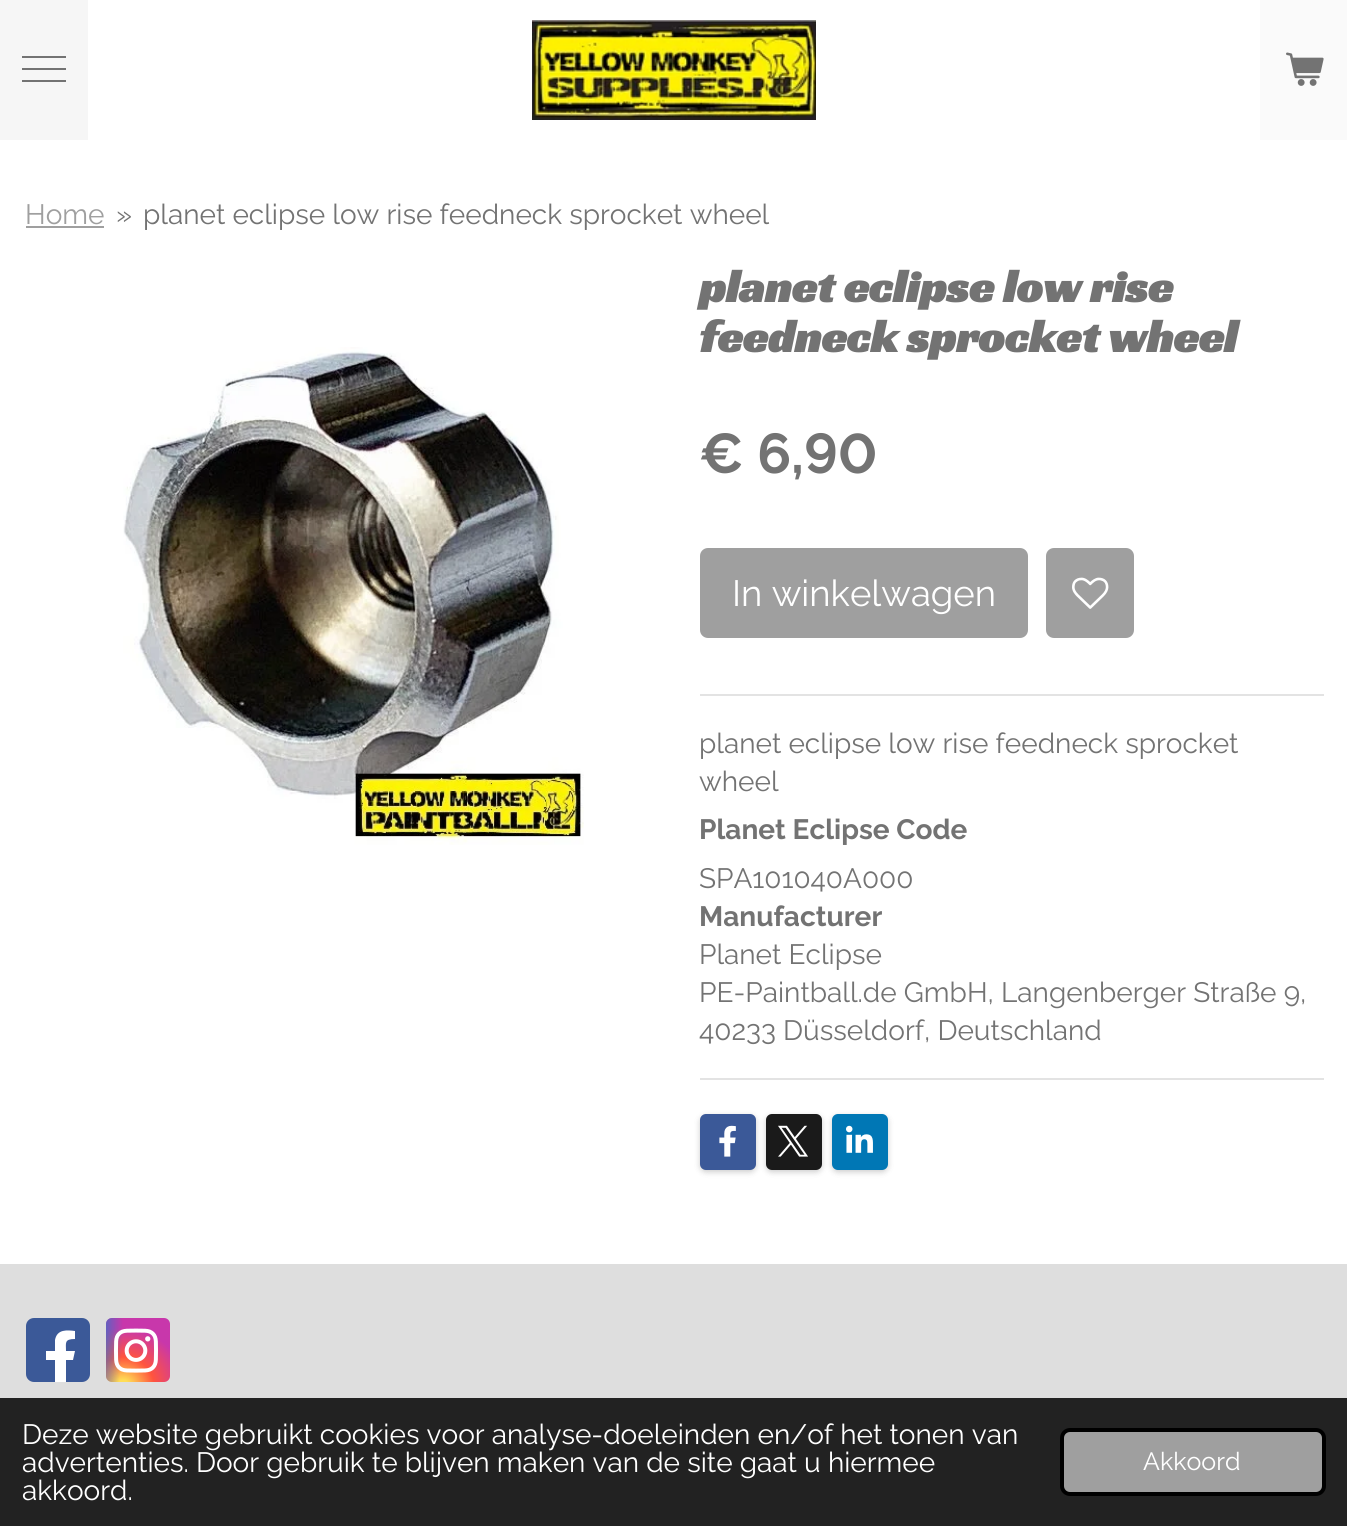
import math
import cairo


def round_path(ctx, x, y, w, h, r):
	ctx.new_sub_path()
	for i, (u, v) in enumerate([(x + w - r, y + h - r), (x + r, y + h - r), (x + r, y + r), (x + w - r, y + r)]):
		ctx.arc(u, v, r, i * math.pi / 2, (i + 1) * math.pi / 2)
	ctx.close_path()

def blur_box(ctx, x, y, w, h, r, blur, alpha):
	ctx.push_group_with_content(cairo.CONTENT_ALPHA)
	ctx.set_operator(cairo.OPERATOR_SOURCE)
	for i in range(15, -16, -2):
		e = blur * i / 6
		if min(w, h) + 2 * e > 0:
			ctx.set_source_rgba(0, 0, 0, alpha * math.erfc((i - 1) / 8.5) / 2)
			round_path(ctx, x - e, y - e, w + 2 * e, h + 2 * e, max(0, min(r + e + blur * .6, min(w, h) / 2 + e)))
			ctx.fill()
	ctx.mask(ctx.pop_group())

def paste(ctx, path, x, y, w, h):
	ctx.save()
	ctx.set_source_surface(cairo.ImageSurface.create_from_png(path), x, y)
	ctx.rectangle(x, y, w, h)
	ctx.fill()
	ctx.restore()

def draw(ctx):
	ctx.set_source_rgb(1, 1, 1)
	ctx.paint()
	ctx.set_source_rgb(0.961, 0.961, 0.961)
	ctx.rectangle(0, 0, 88, 140)
	ctx.fill()
	ctx.set_source_rgb(0.451, 0.451, 0.451)
	ctx.rectangle(22, 68, 44, 2)
	ctx.rectangle(22, 56, 44, 2)
	ctx.rectangle(22, 80, 44, 2)
	ctx.fill()
	paste(ctx, 'media/1.png', 532, 20, 284, 100)
	ctx.set_source_rgb(0.98, 0.98, 0.98)
	ctx.rectangle(1260, 0, 87, 140)
	ctx.fill()
	paste(ctx, 'media/2.png', 1286, 52, 38, 34)
	ctx.select_font_face('Raleway')
	ctx.set_font_size(28)
	ctx.set_source_rgb(0.624, 0.624, 0.624)
	ctx.move_to(25, 224)
	ctx.show_text('Home')
	ctx.rectangle(26, 226, 78, 2)
	ctx.fill()
	ctx.set_source_rgb(0.451, 0.451, 0.451)
	ctx.move_to(116, 224)
	ctx.show_text('»')
	ctx.move_to(143, 224)
	ctx.show_text('planet eclipse low rise feedneck sprocket wheel')
	ctx.select_font_face('Racing Sans One', cairo.FONT_SLANT_NORMAL, cairo.FONT_WEIGHT_BOLD)
	ctx.set_font_size(46)
	ctx.move_to(699, 302)
	ctx.show_text('planet eclipse low rise')
	ctx.move_to(699, 352)
	ctx.show_text('feedneck sprocket wheel')
	paste(ctx, 'media/3.png', 123, 347, 461, 498)
	ctx.select_font_face('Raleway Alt', cairo.FONT_SLANT_NORMAL, cairo.FONT_WEIGHT_BOLD)
	ctx.set_font_size(56)
	ctx.move_to(699, 473)
	ctx.show_text('€ 6,90')
	ctx.set_source_rgb(0.624, 0.624, 0.624)
	round_path(ctx, 700, 548, 328, 90, 8)
	ctx.fill()
	ctx.select_font_face('Raleway')
	ctx.set_font_size(36.5)
	ctx.set_source_rgb(1, 1, 1)
	ctx.move_to(732, 606)
	ctx.show_text('In winkelwagen')
	ctx.set_source_rgb(0.624, 0.624, 0.624)
	round_path(ctx, 1046, 548, 88, 90, 8)
	ctx.fill()
	paste(ctx, 'media/4.png', 1072, 577, 37, 32)
	ctx.set_source_rgb(0.89, 0.89, 0.89)
	ctx.rectangle(700, 694, 624, 2)
	ctx.fill()
	ctx.set_font_size(28)
	ctx.set_source_rgb(0.451, 0.451, 0.451)
	ctx.move_to(699, 753)
	ctx.show_text('planet eclipse low rise feedneck sprocket')
	ctx.move_to(699, 791)
	ctx.show_text('wheel')
	ctx.select_font_face('Raleway', cairo.FONT_SLANT_NORMAL, cairo.FONT_WEIGHT_BOLD)
	ctx.move_to(699, 839)
	ctx.show_text('Planet Eclipse Code')
	ctx.select_font_face('Raleway')
	ctx.move_to(699, 888)
	ctx.show_text('SPA101040A000')
	ctx.select_font_face('Raleway', cairo.FONT_SLANT_NORMAL, cairo.FONT_WEIGHT_BOLD)
	ctx.move_to(699, 926)
	ctx.show_text('Manufacturer')
	ctx.select_font_face('Raleway')
	for x, y, s in [
		(699, 964, 'Planet Eclipse'),
		(699, 1002, 'PE-Paintball.de GmbH, Langenberger Straße 9,'),
		(699, 1040, '40233 Düsseldorf, Deutschland'),
	]:
		ctx.move_to(x, y)
		ctx.show_text(s)
	ctx.set_source_rgb(0.89, 0.89, 0.89)
	ctx.rectangle(700, 1078, 624, 2)
	ctx.fill()
	ctx.set_source_rgb(0, 0, 0)
	blur_box(ctx, 700, 1116, 56, 56, 6, 3, 0.2)
	ctx.set_source_rgb(0.231, 0.349, 0.596)
	round_path(ctx, 700, 1114, 56, 56, 6)
	ctx.fill()
	paste(ctx, 'media/5.png', 719, 1125, 17, 32)
	ctx.set_source_rgb(0, 0, 0)
	blur_box(ctx, 766, 1116, 56, 56, 6, 3, 0.2)
	ctx.set_source_rgb(0.102, 0.102, 0.102)
	round_path(ctx, 766, 1114, 56, 56, 6)
	ctx.fill()
	paste(ctx, 'media/6.png', 778, 1125, 30, 32)
	ctx.set_source_rgb(0, 0, 0)
	blur_box(ctx, 832, 1116, 56, 56, 6, 3, 0.2)
	ctx.set_source_rgb(0, 0.467, 0.71)
	round_path(ctx, 832, 1114, 56, 56, 6)
	ctx.fill()
	paste(ctx, 'media/7.png', 846, 1125, 27, 28)
	ctx.set_source_rgb(0.871, 0.871, 0.871)
	ctx.rectangle(0, 1264, 1347, 134)
	ctx.fill()
	ctx.set_source_rgb(0.231, 0.349, 0.596)
	round_path(ctx, 26, 1318, 64, 64, 8)
	ctx.fill()
	ctx.set_source_rgb(1, 1, 1)
	ctx.new_path()
	ctx.move_to(73, 1360)
	ctx.line_to(66, 1360)
	ctx.line_to(66, 1382)
	ctx.line_to(55, 1382)
	ctx.line_to(55, 1360)
	ctx.line_to(46, 1360)
	ctx.line_to(46, 1351)
	ctx.line_to(55, 1351)
	ctx.line_to(55, 1340)
	ctx.curve_to(57, 1329, 67, 1330, 75, 1331)
	ctx.line_to(75, 1339)
	ctx.curve_to(64, 1339, 66, 1343, 66, 1351)
	ctx.line_to(75, 1351)
	ctx.close_path()
	ctx.fill()
	gradient = cairo.RadialGradient(0, 0, 0, 0, 0, 1)
	gradient.set_matrix(cairo.Matrix(1 / 62, 0, 0, 1 / 58, -1 * 123 / 62, -1 * 1386 / 58))
	gradient.add_color_stop_rgba(0, 1, 0.867, 0.333, 1)
	gradient.add_color_stop_rgba(0.1, 1, 0.867, 0.333, 1)
	gradient.add_color_stop_rgba(0.5, 1, 0.329, 0.243, 1)
	gradient.add_color_stop_rgba(1, 0.784, 0.216, 0.671, 1)
	ctx.set_source(gradient)
	round_path(ctx, 106, 1318, 64, 64, 6)
	ctx.fill()
	gradient = cairo.RadialGradient(0, 0, 0, 0, 0, 1)
	gradient.set_matrix(cairo.Matrix(1 / 28, 0, 0, 1 / 115, -1 * 95 / 28, -1 * 1323 / 115))
	gradient.add_color_stop_rgba(0, 0.216, 0.443, 0.784, 1)
	gradient.add_color_stop_rgba(0.13, 0.216, 0.443, 0.784, 1)
	gradient.add_color_stop_rgba(1, 0.216, 0.443, 0.784, 0)
	ctx.set_source(gradient)
	round_path(ctx, 106, 1318, 64, 64, 6)
	ctx.fill()
	paste(ctx, 'media/8.png', 114, 1328, 44, 45)
	ctx.set_source_rgb(0.133, 0.133, 0.133)
	ctx.rectangle(0, 1398, 1347, 128)
	ctx.fill()
	ctx.set_source_rgb(1, 1, 1)
	for x, y, s in [
		(22, 1444, 'Deze website gebruikt cookies voor analyse-doeleinden en/of het tonen van'),
		(22, 1472, 'advertenties. Door gebruik te blijven maken van de site gaat u hiermee'),
		(22, 1500, 'akkoord.'),
	]:
		ctx.move_to(x, y)
		ctx.show_text(s)
	ctx.set_source_rgb(0.624, 0.624, 0.624)
	round_path(ctx, 1062, 1430, 262, 64, 8)
	ctx.fill_preserve()
	ctx.set_source_rgb(0, 0, 0)
	ctx.set_line_width(4)
	ctx.stroke()
	ctx.set_font_size(25)
	ctx.set_source_rgb(1, 1, 1)
	ctx.move_to(1143, 1470)
	ctx.show_text('Akkoord')


surface = cairo.ImageSurface(cairo.FORMAT_RGB24, 1347, 1526)
ctx = cairo.Context(surface)
options = cairo.FontOptions()
options.set_hint_metrics(cairo.HINT_METRICS_OFF)
options.set_hint_style(cairo.HINT_STYLE_NONE)
ctx.set_font_options(options)
ctx.set_miter_limit(4)
draw(ctx)
surface.write_to_png('image.png')
